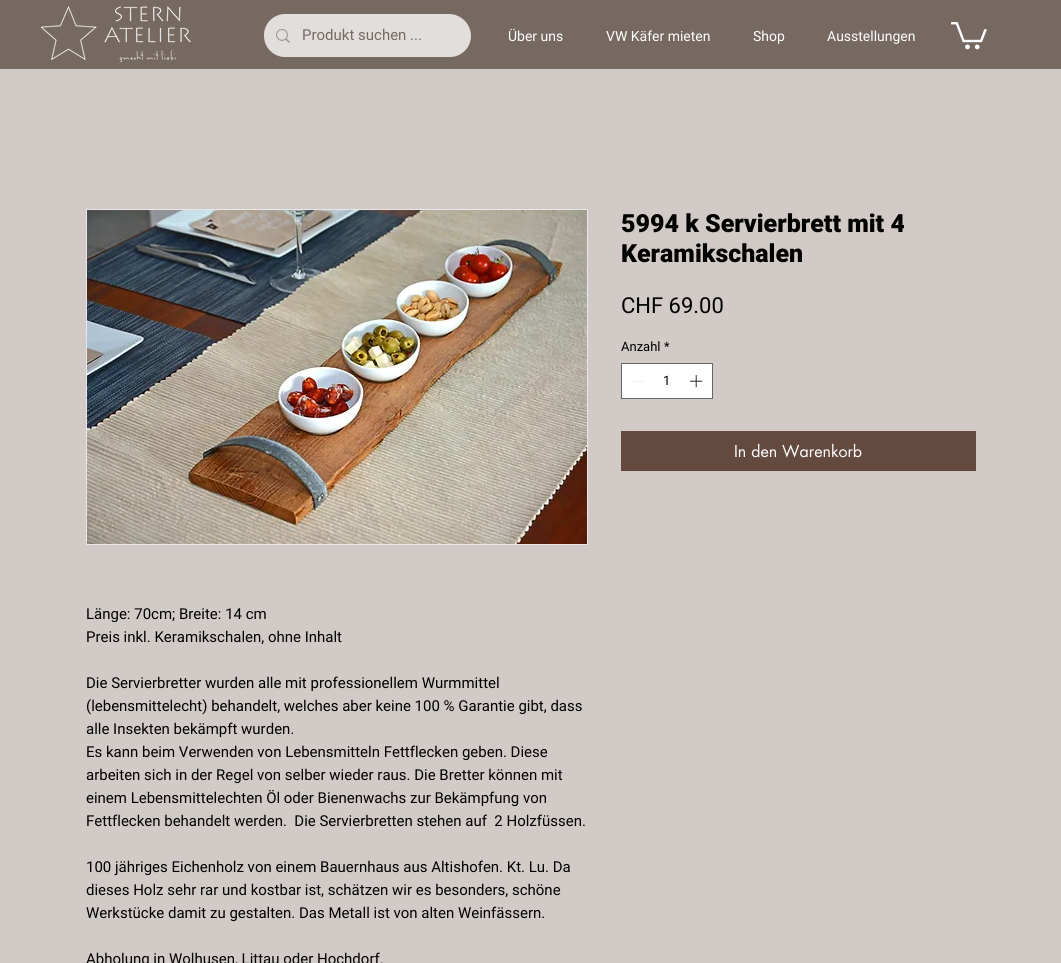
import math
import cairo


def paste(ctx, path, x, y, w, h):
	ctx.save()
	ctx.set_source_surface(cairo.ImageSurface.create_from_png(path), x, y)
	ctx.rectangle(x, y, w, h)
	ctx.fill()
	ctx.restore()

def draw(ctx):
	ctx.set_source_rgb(0.82, 0.792, 0.776)
	ctx.paint()
	ctx.set_source_rgb(0.463, 0.412, 0.384)
	ctx.rectangle(0, 0, 1061, 69)
	ctx.fill()
	paste(ctx, 'media/1.png', 41, 6, 150, 57)
	ctx.save()
	ctx.new_path()
	ctx.move_to(285, 14)
	ctx.line_to(449, 14)
	ctx.curve_to(461, 14, 471, 24, 471, 36)
	ctx.curve_to(471, 47.5, 461.5, 57, 450, 57)
	ctx.line_to(285, 57)
	ctx.curve_to(273.5, 57, 264, 47.5, 264, 36)
	ctx.line_to(264, 35)
	ctx.curve_to(264, 23.5, 273.5, 14, 285, 14)
	ctx.close_path()
	ctx.clip()
	ctx.set_source_rgb(0.882, 0.871, 0.863)
	ctx.new_path()
	ctx.move_to(285, 14)
	ctx.line_to(471, 14)
	ctx.line_to(471, 36)
	ctx.curve_to(471, 47.5, 461.5, 57, 450, 57)
	ctx.line_to(285, 57)
	ctx.curve_to(273.5, 57, 264, 47.5, 264, 36)
	ctx.line_to(264, 35)
	ctx.curve_to(264, 23.5, 273.5, 14, 285, 14)
	ctx.close_path()
	ctx.fill()
	ctx.restore()
	paste(ctx, 'media/2.png', 276, 29, 14, 14)
	ctx.select_font_face('Roboto')
	ctx.set_font_size(15)
	ctx.move_to(302, 40)
	ctx.show_text('Produkt suchen ...')
	ctx.set_font_size(14)
	ctx.set_source_rgb(1, 1, 1)
	for x, y, s in [
		(508, 41, 'Über uns'),
		(606, 41, 'VW Käfer mieten'),
		(753, 41, 'Shop'),
		(827, 41, 'Ausstellungen'),
	]:
		ctx.move_to(x, y)
		ctx.show_text(s)
	paste(ctx, 'media/3.png', 951, 22, 36, 28)
	ctx.select_font_face('Roboto Black')
	ctx.set_font_size(25)
	ctx.set_source_rgb(0, 0, 0)
	ctx.move_to(621, 232)
	ctx.show_text('5994 k Servierbrett mit 4')
	ctx.move_to(621, 262)
	ctx.show_text('Keramikschalen')
	ctx.select_font_face('Roboto')
	ctx.set_font_size(22)
	ctx.move_to(621, 313)
	ctx.show_text('CHF 69.00')
	ctx.set_font_size(13)
	ctx.move_to(621, 351)
	ctx.show_text('Anzahl')
	ctx.move_to(664, 351)
	ctx.show_text('*')
	ctx.set_source_rgb(1, 1, 1)
	ctx.rectangle(621.5, 363.5, 91, 35)
	ctx.fill_preserve()
	ctx.set_source_rgb(0.4, 0.4, 0.4)
	ctx.set_line_width(1)
	ctx.stroke()
	ctx.set_source_rgb(0.89, 0.89, 0.89)
	ctx.set_fill_rule(cairo.FILL_RULE_EVEN_ODD)
	ctx.new_path()
	ctx.move_to(644, 381)
	ctx.line_to(644, 381.5)
	ctx.line_to(632, 381.5)
	ctx.line_to(632, 381)
	ctx.close_path()
	ctx.fill()
	ctx.set_source_rgb(0, 0, 0)
	ctx.move_to(663, 385)
	ctx.show_text('1')
	paste(ctx, 'media/4.png', 690, 375, 13, 13)
	ctx.set_source_rgb(0.392, 0.286, 0.243)
	ctx.rectangle(621, 431, 355, 40)
	ctx.fill()
	ctx.select_font_face('futura')
	ctx.set_font_size(16)
	ctx.set_source_rgb(1, 1, 1)
	ctx.move_to(734, 457)
	ctx.show_text('In den Warenkorb')
	ctx.rectangle(86.5, 209.5, 501, 335)
	ctx.set_source_rgb(0.91, 0.902, 0.902)
	ctx.stroke()
	paste(ctx, 'media/5.png', 87, 210, 500, 334)
	ctx.select_font_face('Roboto')
	ctx.set_font_size(15)
	ctx.set_source_rgb(0, 0, 0)
	for x, y, s in [
		(86, 619, 'Länge: 70cm; Breite: 14 cm'),
		(86, 642, 'Preis inkl. Keramikschalen, ohne Inhalt'),
		(86, 688, 'Die Servierbretter wurden alle mit professionellem Wurmmittel'),
		(86, 711, '(lebensmittelecht) behandelt, welches aber keine 100 % Garantie gibt, dass'),
		(86, 734, 'alle Insekten bekämpft wurden.'),
		(86, 757, 'Es kann beim Verwenden von Lebensmitteln Fettflecken geben. Diese'),
		(86, 780, 'arbeiten sich in der Regel von selber wieder raus. Die Bretter können mit'),
		(86, 803, 'einem Lebensmittelechten Öl oder Bienenwachs zur Bekämpfung von'),
		(86, 826, 'Fettflecken behandelt werden.  Die Servierbretten stehen auf  2 Holzfüssen.'),
		(86, 872, '100 jähriges Eichenholz von einem Bauernhaus aus Altishofen. Kt. Lu. Da'),
		(86, 895, 'dieses Holz sehr rar und kostbar ist, schätzen wir es besonders, schöne'),
		(86, 918, 'Werkstücke damit zu gestalten. Das Metall ist von alten Weinfässern.'),
		(86, 964, 'Abholung in Wolhusen, Littau oder Hochdorf.'),
	]:
		ctx.move_to(x, y)
		ctx.show_text(s)


surface = cairo.ImageSurface(cairo.FORMAT_RGB24, 1061, 963)
ctx = cairo.Context(surface)
options = cairo.FontOptions()
options.set_hint_metrics(cairo.HINT_METRICS_OFF)
options.set_hint_style(cairo.HINT_STYLE_NONE)
ctx.set_font_options(options)
ctx.set_miter_limit(4)
draw(ctx)
surface.write_to_png('image.png')
